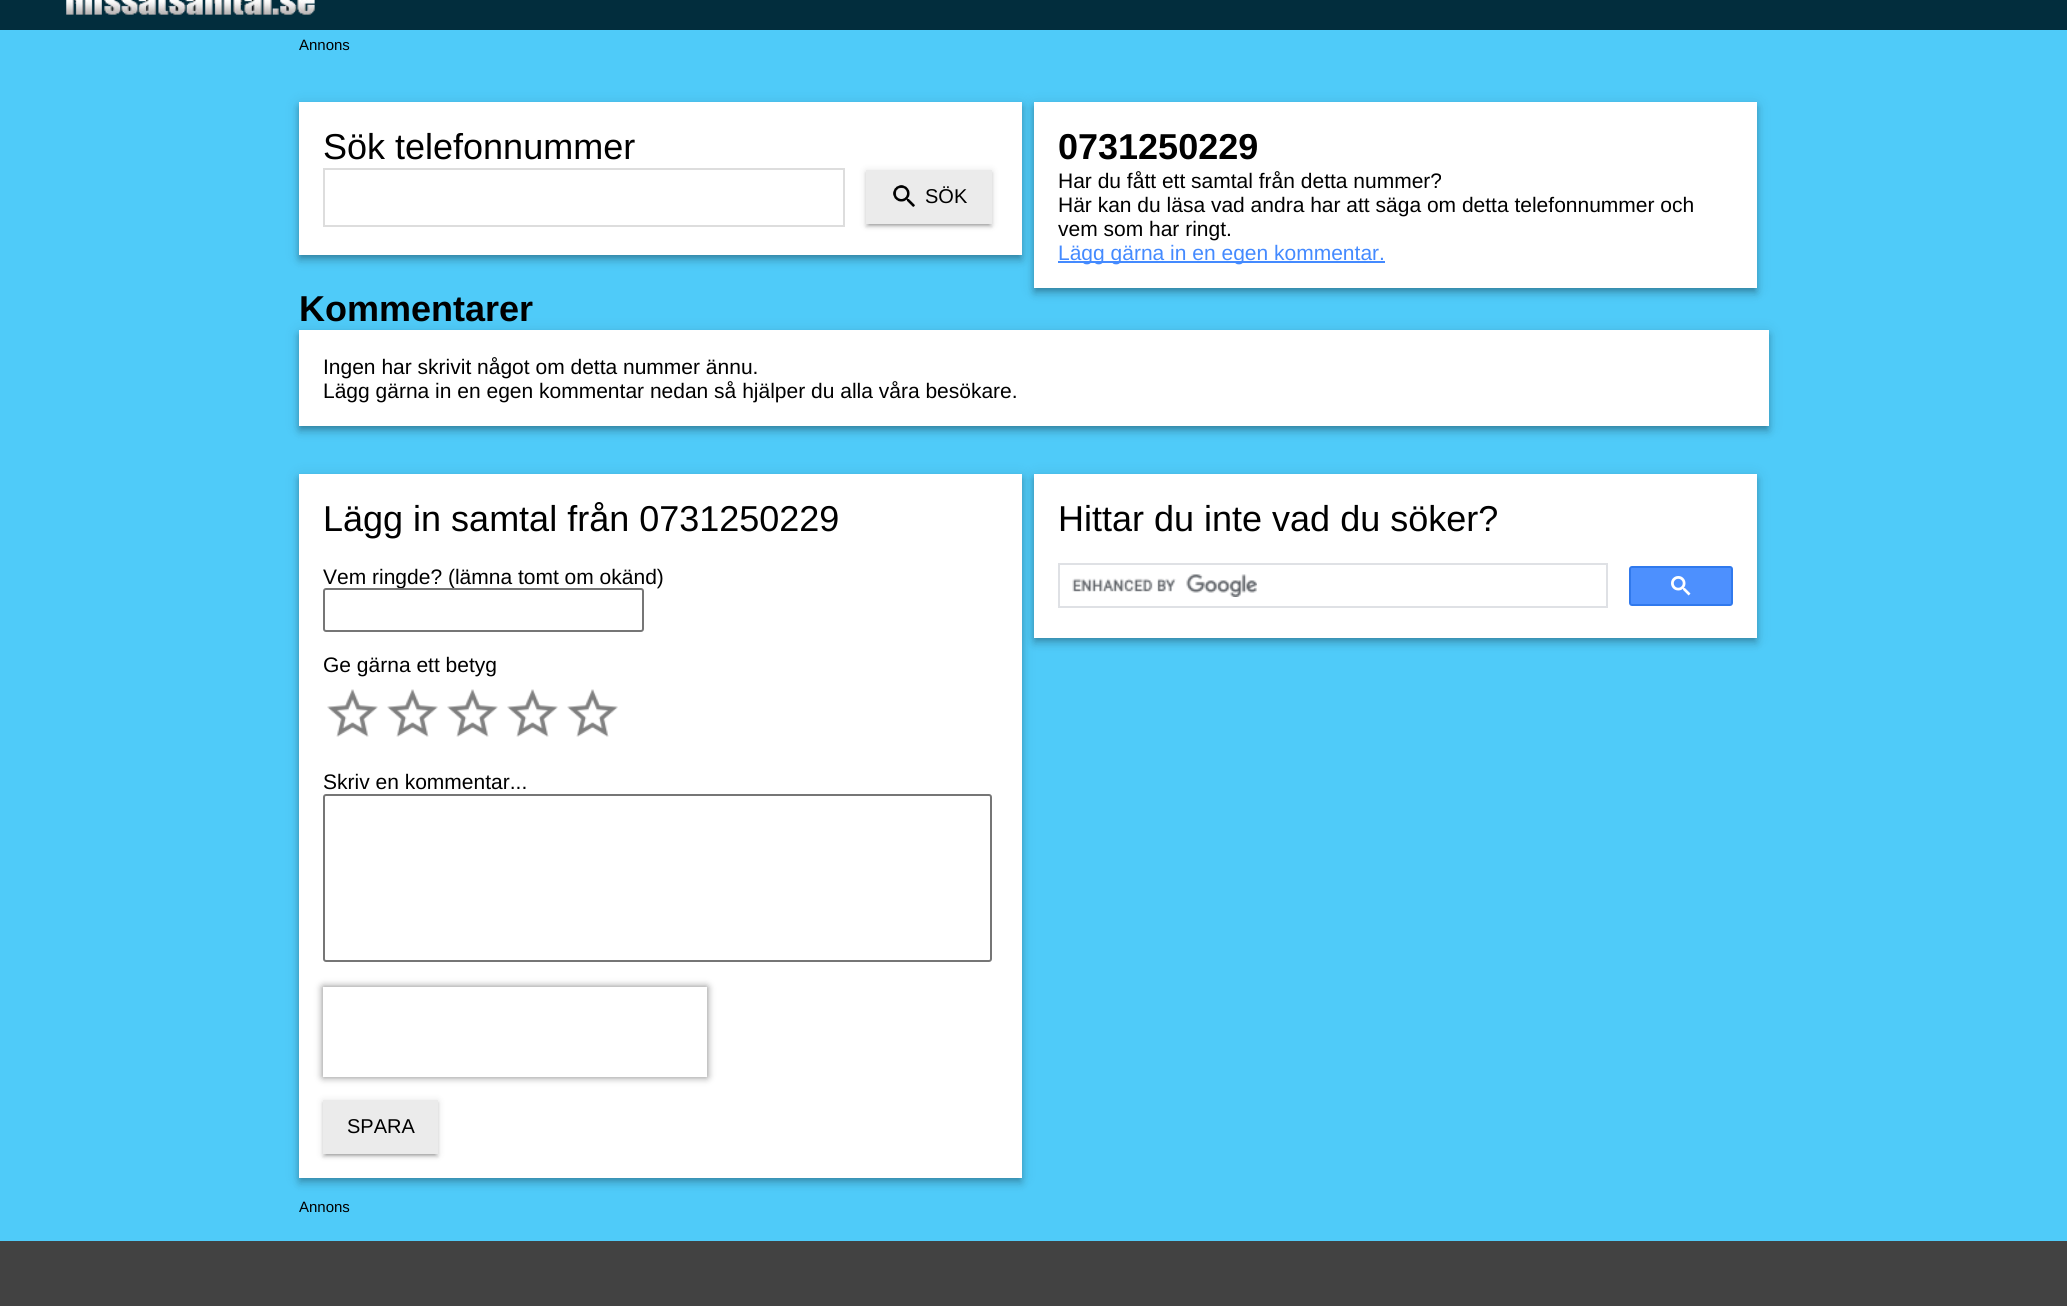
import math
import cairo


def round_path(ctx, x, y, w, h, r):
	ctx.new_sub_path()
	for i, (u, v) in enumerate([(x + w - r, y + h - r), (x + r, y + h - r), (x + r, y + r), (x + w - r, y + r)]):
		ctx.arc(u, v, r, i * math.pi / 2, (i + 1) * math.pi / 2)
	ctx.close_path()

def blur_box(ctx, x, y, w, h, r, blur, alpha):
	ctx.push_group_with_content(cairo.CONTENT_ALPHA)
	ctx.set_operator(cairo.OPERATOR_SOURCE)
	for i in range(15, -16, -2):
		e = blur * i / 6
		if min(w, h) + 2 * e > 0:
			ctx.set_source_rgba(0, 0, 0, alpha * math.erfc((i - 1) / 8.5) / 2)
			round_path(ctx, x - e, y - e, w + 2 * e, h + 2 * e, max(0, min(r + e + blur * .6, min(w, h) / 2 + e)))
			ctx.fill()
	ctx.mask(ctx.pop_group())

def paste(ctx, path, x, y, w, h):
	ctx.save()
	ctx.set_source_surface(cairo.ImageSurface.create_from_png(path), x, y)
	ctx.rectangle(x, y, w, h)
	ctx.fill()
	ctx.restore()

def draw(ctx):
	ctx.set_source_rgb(0.31, 0.796, 0.976)
	ctx.paint()
	ctx.set_source_rgb(0.008, 0.176, 0.239)
	ctx.rectangle(0, 0, 2067, 30)
	ctx.fill()
	paste(ctx, 'media/1.png', 66, 0, 249, 15)
	ctx.select_font_face('Liberation Sans')
	ctx.set_font_size(15)
	ctx.set_source_rgb(0, 0, 0)
	ctx.move_to(299, 50)
	ctx.show_text('Annons')
	ctx.set_source_rgb(0, 0, 0)
	blur_box(ctx, 300, 107, 720, 150, 0, 3, 0.2)
	blur_box(ctx, 299, 104, 723, 153, 0, 7.5, 0.12)
	blur_box(ctx, 299, 108, 723, 153, 0, 4, 0.14)
	ctx.set_source_rgb(1, 1, 1)
	ctx.rectangle(299, 102, 723, 153)
	ctx.fill()
	ctx.set_font_size(36)
	ctx.set_source_rgb(0, 0, 0)
	ctx.move_to(323, 159)
	ctx.show_text('Sök telefonnummer')
	ctx.rectangle(324, 169, 520, 57)
	ctx.set_source_rgb(0.867, 0.867, 0.867)
	ctx.stroke()
	ctx.save()
	ctx.set_fill_rule(cairo.FILL_RULE_EVEN_ODD)
	ctx.new_path()
	ctx.move_to(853, 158)
	ctx.line_to(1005, 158)
	ctx.line_to(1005, 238)
	ctx.line_to(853, 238)
	ctx.close_path()
	ctx.move_to(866, 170)
	ctx.line_to(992, 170)
	ctx.line_to(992, 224)
	ctx.line_to(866, 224)
	ctx.close_path()
	ctx.clip()
	ctx.set_source_rgb(0, 0, 0)
	blur_box(ctx, 866, 171, 126, 54, 0, 4, 0.12)
	ctx.restore()
	ctx.save()
	ctx.set_fill_rule(cairo.FILL_RULE_EVEN_ODD)
	ctx.new_path()
	ctx.move_to(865, 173)
	ctx.line_to(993, 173)
	ctx.line_to(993, 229)
	ctx.line_to(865, 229)
	ctx.close_path()
	ctx.move_to(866, 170)
	ctx.line_to(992, 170)
	ctx.line_to(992, 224)
	ctx.line_to(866, 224)
	ctx.close_path()
	ctx.clip()
	ctx.set_source_rgb(0, 0, 0)
	blur_box(ctx, 869, 177, 120, 48, 0, 1, 0.2)
	ctx.restore()
	ctx.save()
	ctx.set_fill_rule(cairo.FILL_RULE_EVEN_ODD)
	ctx.new_path()
	ctx.move_to(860, 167)
	ctx.line_to(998, 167)
	ctx.line_to(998, 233)
	ctx.line_to(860, 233)
	ctx.close_path()
	ctx.move_to(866, 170)
	ctx.line_to(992, 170)
	ctx.line_to(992, 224)
	ctx.line_to(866, 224)
	ctx.close_path()
	ctx.clip()
	ctx.set_source_rgb(0, 0, 0)
	blur_box(ctx, 866, 173, 126, 54, 0, 1.5, 0.14)
	ctx.restore()
	ctx.set_source_rgba(0.62, 0.62, 0.62, 0.2)
	ctx.rectangle(866, 170, 126, 54)
	ctx.fill()
	paste(ctx, 'media/2.png', 893, 185, 22, 22)
	ctx.set_font_size(20)
	ctx.set_source_rgb(0, 0, 0)
	ctx.move_to(925, 203)
	ctx.show_text('SÖK')
	ctx.set_source_rgb(0, 0, 0)
	blur_box(ctx, 1035, 107, 720, 183, 0, 3, 0.2)
	blur_box(ctx, 1034, 104, 723, 186, 0, 7.5, 0.12)
	blur_box(ctx, 1034, 108, 723, 186, 0, 4, 0.14)
	ctx.set_source_rgb(1, 1, 1)
	ctx.rectangle(1034, 102, 723, 186)
	ctx.fill()
	ctx.select_font_face('Liberation Sans', cairo.FONT_SLANT_NORMAL, cairo.FONT_WEIGHT_BOLD)
	ctx.set_font_size(36)
	ctx.set_source_rgb(0, 0, 0)
	ctx.move_to(1058, 159)
	ctx.show_text('0731250229')
	ctx.select_font_face('Liberation Sans')
	ctx.set_font_size(21)
	for x, y, s in [
		(1058, 188, 'Har du fått ett samtal från detta nummer?'),
		(1058, 212, 'Här kan du läsa vad andra har att säga om detta telefonnummer och'),
		(1058, 236, 'vem som har ringt.'),
	]:
		ctx.move_to(x, y)
		ctx.show_text(s)
	ctx.set_source_rgb(0.267, 0.541, 1)
	ctx.rectangle(1058, 261, 327, 2)
	ctx.fill()
	ctx.move_to(1058, 260)
	ctx.show_text('Lägg gärna in en egen kommentar.')
	ctx.set_source_rgb(0, 0, 0)
	blur_box(ctx, 299, 332, 1470, 96, 0, 7.5, 0.12)
	ctx.select_font_face('Liberation Sans', cairo.FONT_SLANT_NORMAL, cairo.FONT_WEIGHT_BOLD)
	ctx.set_font_size(36)
	ctx.set_source_rgb(0, 0, 0)
	ctx.move_to(299, 321)
	ctx.show_text('Kommentarer')
	ctx.set_source_rgb(0, 0, 0)
	blur_box(ctx, 300, 335, 1467, 93, 0, 3, 0.2)
	blur_box(ctx, 299, 336, 1470, 96, 0, 4, 0.14)
	ctx.set_source_rgb(1, 1, 1)
	ctx.rectangle(299, 330, 1470, 96)
	ctx.fill()
	ctx.select_font_face('Liberation Sans')
	ctx.set_font_size(21)
	ctx.set_source_rgb(0, 0, 0)
	ctx.move_to(323, 374)
	ctx.show_text('Ingen har skrivit något om detta nummer ännu.')
	ctx.move_to(323, 398)
	ctx.show_text('Lägg gärna in en egen kommentar nedan så hjälper du alla våra besökare.')
	ctx.set_source_rgb(0, 0, 0)
	blur_box(ctx, 300, 479, 720, 700, 0, 3, 0.2)
	blur_box(ctx, 299, 476, 723, 703, 0, 7.5, 0.12)
	blur_box(ctx, 299, 480, 723, 704, 0, 4, 0.14)
	ctx.set_source_rgb(1, 1, 1)
	ctx.rectangle(299, 474, 723, 704)
	ctx.fill()
	ctx.set_font_size(36)
	ctx.set_source_rgb(0, 0, 0)
	ctx.move_to(323, 531)
	ctx.show_text('Lägg in samtal från 0731250229')
	ctx.set_font_size(21)
	ctx.move_to(323, 584)
	ctx.show_text('Vem ringde? (lämna tomt om okänd)')
	ctx.set_source_rgb(1, 1, 1)
	round_path(ctx, 324, 589, 319, 42, 2)
	ctx.fill_preserve()
	ctx.set_source_rgb(0.463, 0.463, 0.463)
	ctx.stroke()
	ctx.set_source_rgb(0, 0, 0)
	ctx.move_to(323, 672)
	ctx.show_text('Ge gärna ett betyg')
	paste(ctx, 'media/3.png', 327, 689, 51, 48)
	paste(ctx, 'media/4.png', 387, 689, 51, 48)
	paste(ctx, 'media/3.png', 447, 689, 51, 48)
	paste(ctx, 'media/3.png', 507, 689, 51, 48)
	paste(ctx, 'media/4.png', 567, 689, 51, 48)
	ctx.move_to(323, 789)
	ctx.show_text('Skriv en kommentar...')
	round_path(ctx, 324, 795, 667, 166, 2)
	ctx.set_source_rgb(0.463, 0.463, 0.463)
	ctx.stroke()
	ctx.save()
	ctx.set_fill_rule(cairo.FILL_RULE_EVEN_ODD)
	ctx.new_path()
	ctx.move_to(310, 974)
	ctx.line_to(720, 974)
	ctx.line_to(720, 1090)
	ctx.line_to(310, 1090)
	ctx.close_path()
	ctx.move_to(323, 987)
	ctx.line_to(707, 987)
	ctx.line_to(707, 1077)
	ctx.line_to(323, 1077)
	ctx.close_path()
	ctx.clip()
	ctx.set_source_rgb(0.502, 0.502, 0.502)
	blur_box(ctx, 323, 987, 384, 90, 0, 4, 1)
	ctx.restore()
	ctx.save()
	ctx.set_fill_rule(cairo.FILL_RULE_EVEN_ODD)
	ctx.new_path()
	ctx.move_to(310, 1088)
	ctx.line_to(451, 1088)
	ctx.line_to(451, 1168)
	ctx.line_to(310, 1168)
	ctx.close_path()
	ctx.move_to(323, 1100)
	ctx.line_to(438, 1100)
	ctx.line_to(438, 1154)
	ctx.line_to(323, 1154)
	ctx.close_path()
	ctx.clip()
	ctx.set_source_rgb(0, 0, 0)
	blur_box(ctx, 323, 1101, 115, 54, 0, 4, 0.12)
	ctx.restore()
	ctx.save()
	ctx.set_fill_rule(cairo.FILL_RULE_EVEN_ODD)
	ctx.new_path()
	ctx.move_to(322, 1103)
	ctx.line_to(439, 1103)
	ctx.line_to(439, 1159)
	ctx.line_to(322, 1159)
	ctx.close_path()
	ctx.move_to(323, 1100)
	ctx.line_to(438, 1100)
	ctx.line_to(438, 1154)
	ctx.line_to(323, 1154)
	ctx.close_path()
	ctx.clip()
	ctx.set_source_rgb(0, 0, 0)
	blur_box(ctx, 326, 1107, 109, 48, 0, 1, 0.2)
	ctx.restore()
	ctx.save()
	ctx.set_fill_rule(cairo.FILL_RULE_EVEN_ODD)
	ctx.new_path()
	ctx.move_to(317, 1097)
	ctx.line_to(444, 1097)
	ctx.line_to(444, 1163)
	ctx.line_to(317, 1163)
	ctx.close_path()
	ctx.move_to(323, 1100)
	ctx.line_to(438, 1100)
	ctx.line_to(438, 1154)
	ctx.line_to(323, 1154)
	ctx.close_path()
	ctx.clip()
	ctx.set_source_rgb(0, 0, 0)
	blur_box(ctx, 323, 1103, 115, 54, 0, 1.5, 0.14)
	ctx.restore()
	ctx.set_source_rgba(0.62, 0.62, 0.62, 0.2)
	ctx.rectangle(323, 1100, 115, 54)
	ctx.fill()
	ctx.set_font_size(20)
	ctx.set_source_rgb(0, 0, 0)
	ctx.move_to(347, 1133)
	ctx.show_text('SPARA')
	ctx.set_source_rgb(0, 0, 0)
	blur_box(ctx, 1035, 479, 720, 160, 0, 3, 0.2)
	blur_box(ctx, 1034, 476, 723, 163, 0, 7.5, 0.12)
	blur_box(ctx, 1034, 480, 723, 164, 0, 4, 0.14)
	ctx.set_source_rgb(1, 1, 1)
	ctx.rectangle(1034, 474, 723, 164)
	ctx.fill()
	ctx.set_font_size(36)
	ctx.set_source_rgb(0, 0, 0)
	ctx.move_to(1058, 531)
	ctx.show_text('Hittar du inte vad du söker?')
	ctx.rectangle(1059, 564, 548, 43)
	ctx.set_source_rgb(0.875, 0.882, 0.898)
	ctx.stroke()
	paste(ctx, 'media/5.png', 1072, 574, 185, 23)
	ctx.set_source_rgb(0.302, 0.565, 0.996)
	round_path(ctx, 1630, 567, 102, 38, 2)
	ctx.fill_preserve()
	ctx.set_source_rgb(0.188, 0.475, 0.929)
	ctx.stroke()
	paste(ctx, 'media/6.png', 1671, 576, 20, 20)
	ctx.set_font_size(15)
	ctx.set_source_rgb(0, 0, 0)
	ctx.move_to(299, 1212)
	ctx.show_text('Annons')
	ctx.set_source_rgb(0.259, 0.259, 0.259)
	ctx.rectangle(0, 1241, 2067, 65)
	ctx.fill()


surface = cairo.ImageSurface(cairo.FORMAT_RGB24, 2067, 1306)
ctx = cairo.Context(surface)
options = cairo.FontOptions()
options.set_hint_metrics(cairo.HINT_METRICS_OFF)
options.set_hint_style(cairo.HINT_STYLE_NONE)
ctx.set_font_options(options)
ctx.set_miter_limit(4)
draw(ctx)
surface.write_to_png('image.png')
